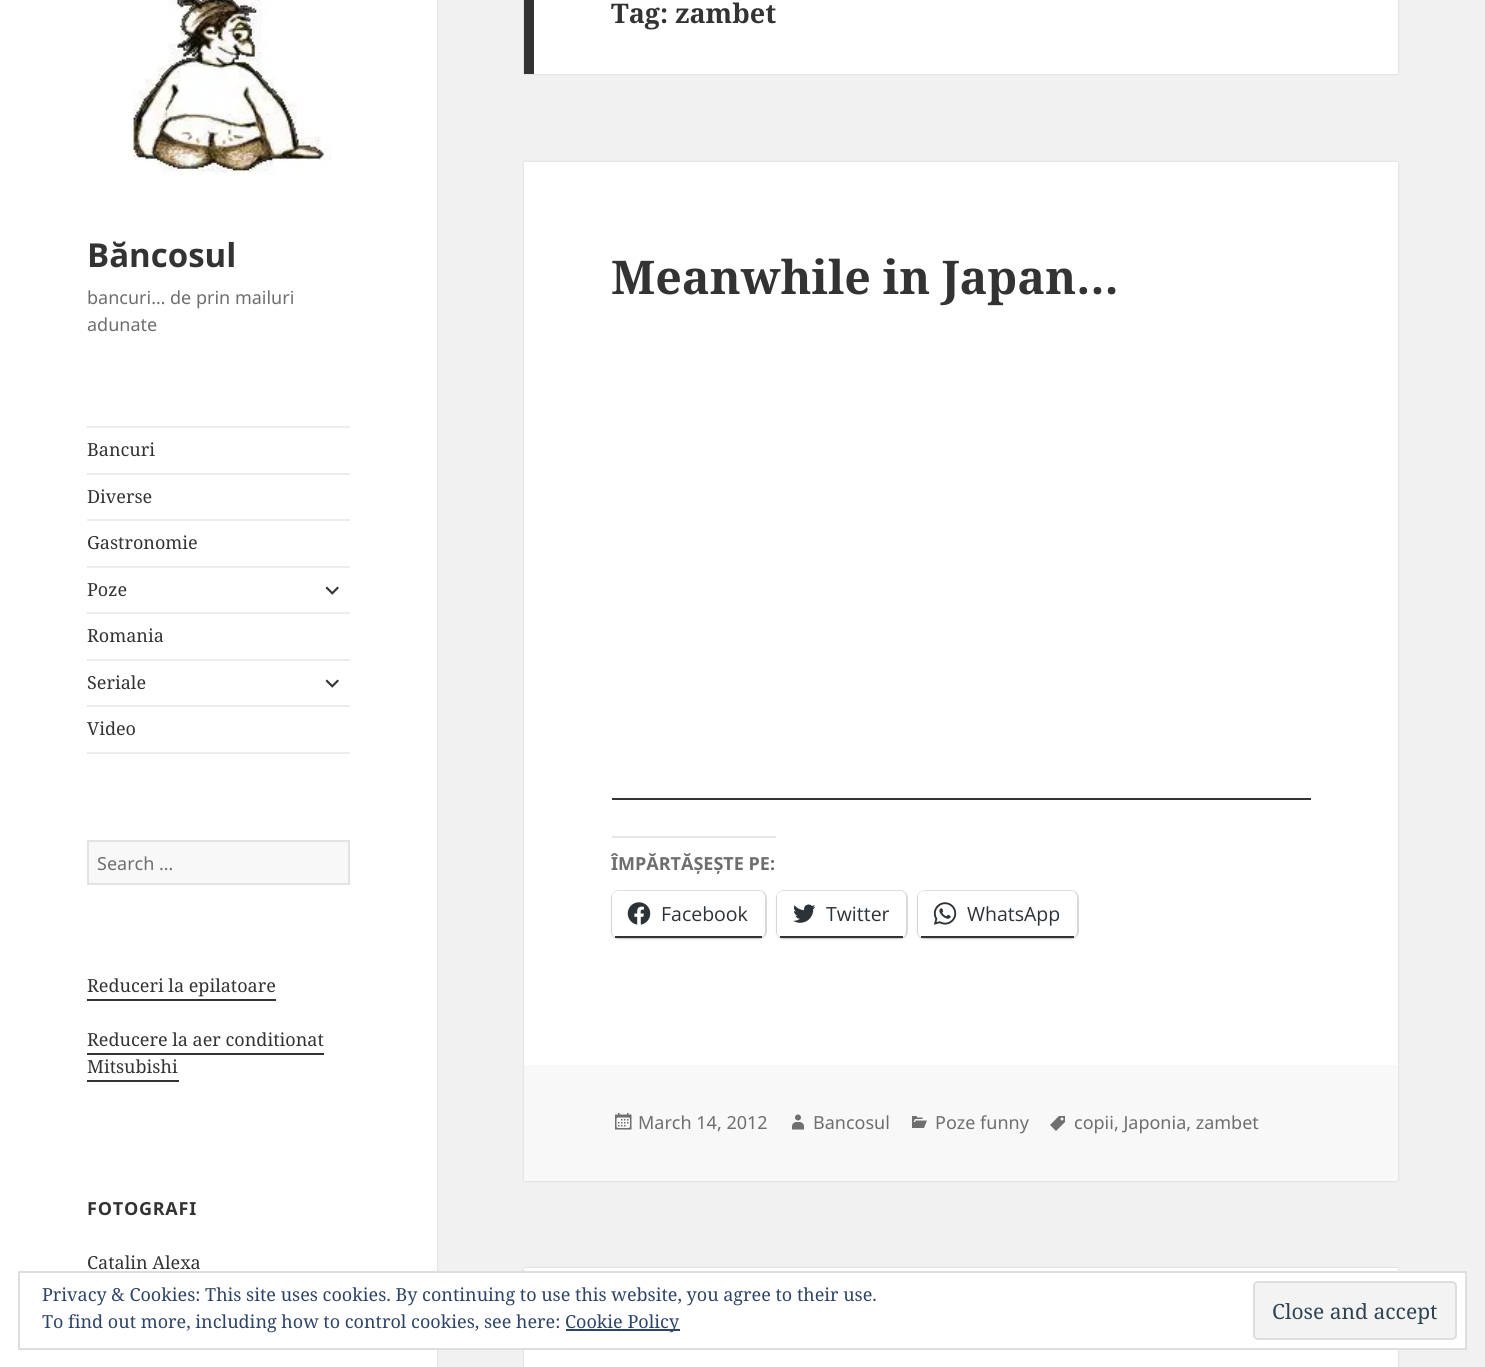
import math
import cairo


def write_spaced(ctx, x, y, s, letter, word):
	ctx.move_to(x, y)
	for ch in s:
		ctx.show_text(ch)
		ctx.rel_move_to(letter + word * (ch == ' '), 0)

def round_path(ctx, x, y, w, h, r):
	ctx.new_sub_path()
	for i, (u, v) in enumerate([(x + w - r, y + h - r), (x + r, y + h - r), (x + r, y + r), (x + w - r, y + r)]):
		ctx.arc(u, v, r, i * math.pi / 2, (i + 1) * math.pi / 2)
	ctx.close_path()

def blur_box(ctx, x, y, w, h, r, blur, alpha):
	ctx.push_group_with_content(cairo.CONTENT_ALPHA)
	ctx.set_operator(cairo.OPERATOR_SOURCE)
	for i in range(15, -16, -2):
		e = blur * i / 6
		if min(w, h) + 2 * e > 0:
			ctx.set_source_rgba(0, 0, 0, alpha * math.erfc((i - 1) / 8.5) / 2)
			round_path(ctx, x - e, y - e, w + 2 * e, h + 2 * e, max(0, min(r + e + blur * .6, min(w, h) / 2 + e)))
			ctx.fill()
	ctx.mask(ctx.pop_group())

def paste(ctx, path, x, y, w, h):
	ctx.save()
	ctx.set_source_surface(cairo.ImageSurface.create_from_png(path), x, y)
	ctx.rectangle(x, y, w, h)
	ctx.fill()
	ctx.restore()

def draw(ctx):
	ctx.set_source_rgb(0.945, 0.945, 0.945)
	ctx.paint()
	ctx.set_source_rgb(0, 0, 0)
	blur_box(ctx, 0, 0, 437, 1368, 0, 1, 0.15)
	ctx.set_source_rgb(1, 1, 1)
	ctx.rectangle(0, 0, 437, 1367)
	ctx.fill()
	paste(ctx, 'media/1.png', 129, 0, 202, 175)
	ctx.select_font_face('Noto Sans', cairo.FONT_SLANT_NORMAL, cairo.FONT_WEIGHT_BOLD)
	ctx.set_font_size(33)
	ctx.set_source_rgb(0.2, 0.2, 0.2)
	ctx.move_to(87, 267)
	ctx.show_text('Băncosul')
	ctx.select_font_face('Noto Sans')
	ctx.set_font_size(18)
	ctx.set_source_rgb(0.431, 0.431, 0.431)
	ctx.move_to(87, 304)
	ctx.show_text('bancuri… de prin mailuri')
	ctx.move_to(87, 331)
	ctx.show_text('adunate')
	ctx.set_source_rgb(0.922, 0.922, 0.922)
	ctx.rectangle(87, 426, 263, 2)
	ctx.fill()
	ctx.rectangle(87, 752, 263, 2)
	ctx.fill()
	ctx.select_font_face('Noto Serif')
	ctx.set_source_rgb(0.2, 0.2, 0.2)
	ctx.move_to(87, 456)
	ctx.show_text('Bancuri')
	ctx.set_source_rgb(0.922, 0.922, 0.922)
	ctx.rectangle(87, 473, 263, 2)
	ctx.fill()
	ctx.set_source_rgb(0.2, 0.2, 0.2)
	ctx.move_to(87, 503)
	ctx.show_text('Diverse')
	ctx.set_source_rgb(0.922, 0.922, 0.922)
	ctx.rectangle(87, 519, 263, 2)
	ctx.fill()
	ctx.set_source_rgb(0.2, 0.2, 0.2)
	ctx.move_to(87, 549)
	ctx.show_text('Gastronomie')
	ctx.set_source_rgb(0.922, 0.922, 0.922)
	ctx.rectangle(87, 566, 263, 2)
	ctx.fill()
	ctx.set_source_rgb(0.2, 0.2, 0.2)
	ctx.move_to(87, 596)
	ctx.show_text('Poze')
	paste(ctx, 'media/2.png', 325, 586, 14, 9)
	ctx.set_source_rgb(0.922, 0.922, 0.922)
	ctx.rectangle(87, 612, 263, 2)
	ctx.fill()
	ctx.set_source_rgb(0.2, 0.2, 0.2)
	ctx.move_to(87, 642)
	ctx.show_text('Romania')
	ctx.set_source_rgb(0.922, 0.922, 0.922)
	ctx.rectangle(87, 659, 263, 2)
	ctx.fill()
	ctx.set_source_rgb(0.2, 0.2, 0.2)
	ctx.move_to(87, 689)
	ctx.show_text('Seriale')
	paste(ctx, 'media/2.png', 325, 679, 14, 9)
	ctx.set_source_rgb(0.922, 0.922, 0.922)
	ctx.rectangle(87, 705, 263, 2)
	ctx.fill()
	ctx.set_source_rgb(0.2, 0.2, 0.2)
	ctx.move_to(87, 735)
	ctx.show_text('Video')
	ctx.set_source_rgb(0.969, 0.969, 0.969)
	ctx.rectangle(88, 841, 261, 43)
	ctx.fill_preserve()
	ctx.set_source_rgb(0.89, 0.89, 0.89)
	ctx.stroke()
	ctx.select_font_face('Noto Sans')
	ctx.set_source_rgb(0.431, 0.431, 0.431)
	ctx.move_to(97, 870)
	ctx.show_text('Search …')
	ctx.select_font_face('Noto Serif')
	ctx.set_source_rgb(0.2, 0.2, 0.2)
	ctx.move_to(87, 992)
	ctx.show_text('Reduceri la epilatoare')
	ctx.rectangle(87, 999, 189, 2)
	ctx.fill()
	ctx.move_to(87, 1046)
	ctx.show_text('Reducere la aer conditionat')
	ctx.move_to(87, 1073)
	ctx.show_text('Mitsubishi')
	ctx.rectangle(87, 1053, 237, 2)
	ctx.fill()
	ctx.rectangle(87, 1080, 92, 2)
	ctx.fill()
	ctx.select_font_face('Noto Sans', cairo.FONT_SLANT_NORMAL, cairo.FONT_WEIGHT_BOLD)
	write_spaced(ctx, 87, 1215, 'FOTOGRAFI', 0.75, 0)
	ctx.select_font_face('Noto Serif')
	ctx.move_to(87, 1269)
	ctx.show_text('Catalin Alexa')
	ctx.set_source_rgb(0, 0, 0)
	blur_box(ctx, 524, -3, 874, 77, 0, 1, 0.15)
	ctx.set_source_rgb(1, 1, 1)
	ctx.rectangle(534, 0, 864, 74)
	ctx.fill()
	ctx.set_source_rgb(0.2, 0.2, 0.2)
	ctx.rectangle(524, 0, 10, 74)
	ctx.fill()
	ctx.select_font_face('Noto Serif', cairo.FONT_SLANT_NORMAL, cairo.FONT_WEIGHT_BOLD)
	ctx.set_font_size(27)
	ctx.move_to(611, 23)
	ctx.show_text('Tag: zambet')
	ctx.set_source_rgb(0, 0, 0)
	blur_box(ctx, 524, 162, 874, 1019, 0, 1, 0.15)
	ctx.set_source_rgb(1, 1, 1)
	ctx.rectangle(524, 162, 874, 903)
	ctx.fill()
	ctx.set_font_size(46.5)
	ctx.set_source_rgb(0.2, 0.2, 0.2)
	ctx.move_to(611, 294)
	ctx.show_text('Meanwhile in Japan…')
	ctx.rectangle(612, 798, 699, 2)
	ctx.fill()
	ctx.set_source_rgb(0.906, 0.906, 0.91)
	ctx.rectangle(612, 836, 164, 2)
	ctx.fill()
	ctx.select_font_face('Noto Sans', cairo.FONT_SLANT_NORMAL, cairo.FONT_WEIGHT_BOLD)
	ctx.set_font_size(18)
	ctx.set_source_rgb(0.431, 0.431, 0.431)
	ctx.move_to(611, 870)
	ctx.show_text('ÎMPĂRTĂȘEȘTE PE:')
	round_path(ctx, 612, 891, 154, 47, 7)
	ctx.set_source_rgb(0.878, 0.878, 0.878)
	ctx.stroke()
	ctx.set_source_rgb(0, 0, 0)
	blur_box(ctx, 612, 893, 153, 46, 6, 1.5, 0.12)
	ctx.set_source_rgb(1, 1, 1)
	round_path(ctx, 612, 891, 153, 47, 6)
	ctx.fill()
	ctx.set_source_rgb(0.2, 0.2, 0.2)
	ctx.rectangle(615, 936, 147, 2)
	ctx.fill()
	paste(ctx, 'media/3.png', 627, 902, 24, 23)
	ctx.select_font_face('Open Sans')
	ctx.set_font_size(19.5)
	ctx.set_source_rgb(0.173, 0.2, 0.22)
	ctx.move_to(661, 921)
	ctx.show_text('Facebook')
	round_path(ctx, 777, 891, 130, 47, 7)
	ctx.set_source_rgb(0.878, 0.878, 0.878)
	ctx.stroke()
	ctx.set_source_rgb(0, 0, 0)
	blur_box(ctx, 777, 893, 129, 46, 6, 1.5, 0.12)
	ctx.set_source_rgb(1, 1, 1)
	round_path(ctx, 777, 891, 129, 47, 6)
	ctx.fill()
	ctx.set_source_rgb(0.2, 0.2, 0.2)
	ctx.rectangle(780, 936, 123, 2)
	ctx.fill()
	paste(ctx, 'media/4.png', 793, 904, 23, 19)
	ctx.set_source_rgb(0.173, 0.2, 0.22)
	ctx.move_to(826, 921)
	ctx.show_text('Twitter')
	round_path(ctx, 918, 891, 160, 47, 7)
	ctx.set_source_rgb(0.878, 0.878, 0.878)
	ctx.stroke()
	ctx.set_source_rgb(0, 0, 0)
	blur_box(ctx, 918, 893, 159, 46, 6, 1.5, 0.12)
	ctx.set_source_rgb(1, 1, 1)
	round_path(ctx, 918, 891, 159, 47, 6)
	ctx.fill()
	ctx.set_source_rgb(0.2, 0.2, 0.2)
	ctx.rectangle(921, 936, 153, 2)
	ctx.fill()
	paste(ctx, 'media/5.png', 933, 902, 24, 23)
	ctx.set_source_rgb(0.173, 0.2, 0.22)
	ctx.move_to(967, 921)
	ctx.show_text('WhatsApp')
	ctx.set_source_rgb(0.969, 0.969, 0.969)
	ctx.rectangle(524, 1065, 874, 116)
	ctx.fill()
	paste(ctx, 'media/6.png', 615, 1113, 17, 17)
	ctx.select_font_face('Noto Sans')
	ctx.set_font_size(18)
	ctx.set_source_rgb(0.431, 0.431, 0.431)
	ctx.move_to(638, 1129)
	ctx.show_text('March 14, 2012')
	paste(ctx, 'media/7.png', 792, 1114, 12, 16)
	ctx.move_to(813, 1129)
	ctx.show_text('Bancosul')
	paste(ctx, 'media/8.png', 912, 1116, 15, 12)
	ctx.move_to(935, 1129)
	ctx.show_text('Poze funny')
	paste(ctx, 'media/9.png', 1050, 1116, 15, 15)
	ctx.move_to(1074, 1129)
	ctx.show_text('copii, Japonia, zambet')
	ctx.set_source_rgb(0, 0, 0)
	blur_box(ctx, 524, 1268, 874, 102, 0, 1, 0.15)
	ctx.set_source_rgb(1, 1, 1)
	ctx.rectangle(524, 1268, 874, 99)
	ctx.fill()
	ctx.rectangle(437, 1273, 1028, 75)
	ctx.fill()
	ctx.rectangle(19, 1272, 1447, 77)
	ctx.set_source_rgb(0.871, 0.871, 0.871)
	ctx.stroke()
	ctx.select_font_face('Noto Serif')
	ctx.set_source_rgb(0.18, 0.267, 0.404)
	ctx.move_to(42, 1301)
	ctx.show_text('Privacy & Cookies: This site uses cookies. By continuing to use this website, you agree to their use.')
	ctx.move_to(42, 1328)
	ctx.show_text('To find out more, including how to control cookies, see here:')
	ctx.rectangle(566, 1329, 114, 2)
	ctx.fill()
	ctx.move_to(565, 1328)
	ctx.show_text('Cookie Policy')
	ctx.set_source_rgb(0.953, 0.953, 0.953)
	round_path(ctx, 1254, 1282, 202, 57, 4)
	ctx.fill_preserve()
	ctx.set_source_rgb(0.871, 0.871, 0.871)
	ctx.stroke()
	ctx.set_font_size(21)
	ctx.set_source_rgb(0.18, 0.267, 0.325)
	ctx.move_to(1272, 1319)
	ctx.show_text('Close and accept')


surface = cairo.ImageSurface(cairo.FORMAT_RGB24, 1485, 1367)
ctx = cairo.Context(surface)
options = cairo.FontOptions()
options.set_hint_metrics(cairo.HINT_METRICS_OFF)
options.set_hint_style(cairo.HINT_STYLE_NONE)
ctx.set_font_options(options)
ctx.set_miter_limit(4)
draw(ctx)
surface.write_to_png('image.png')
